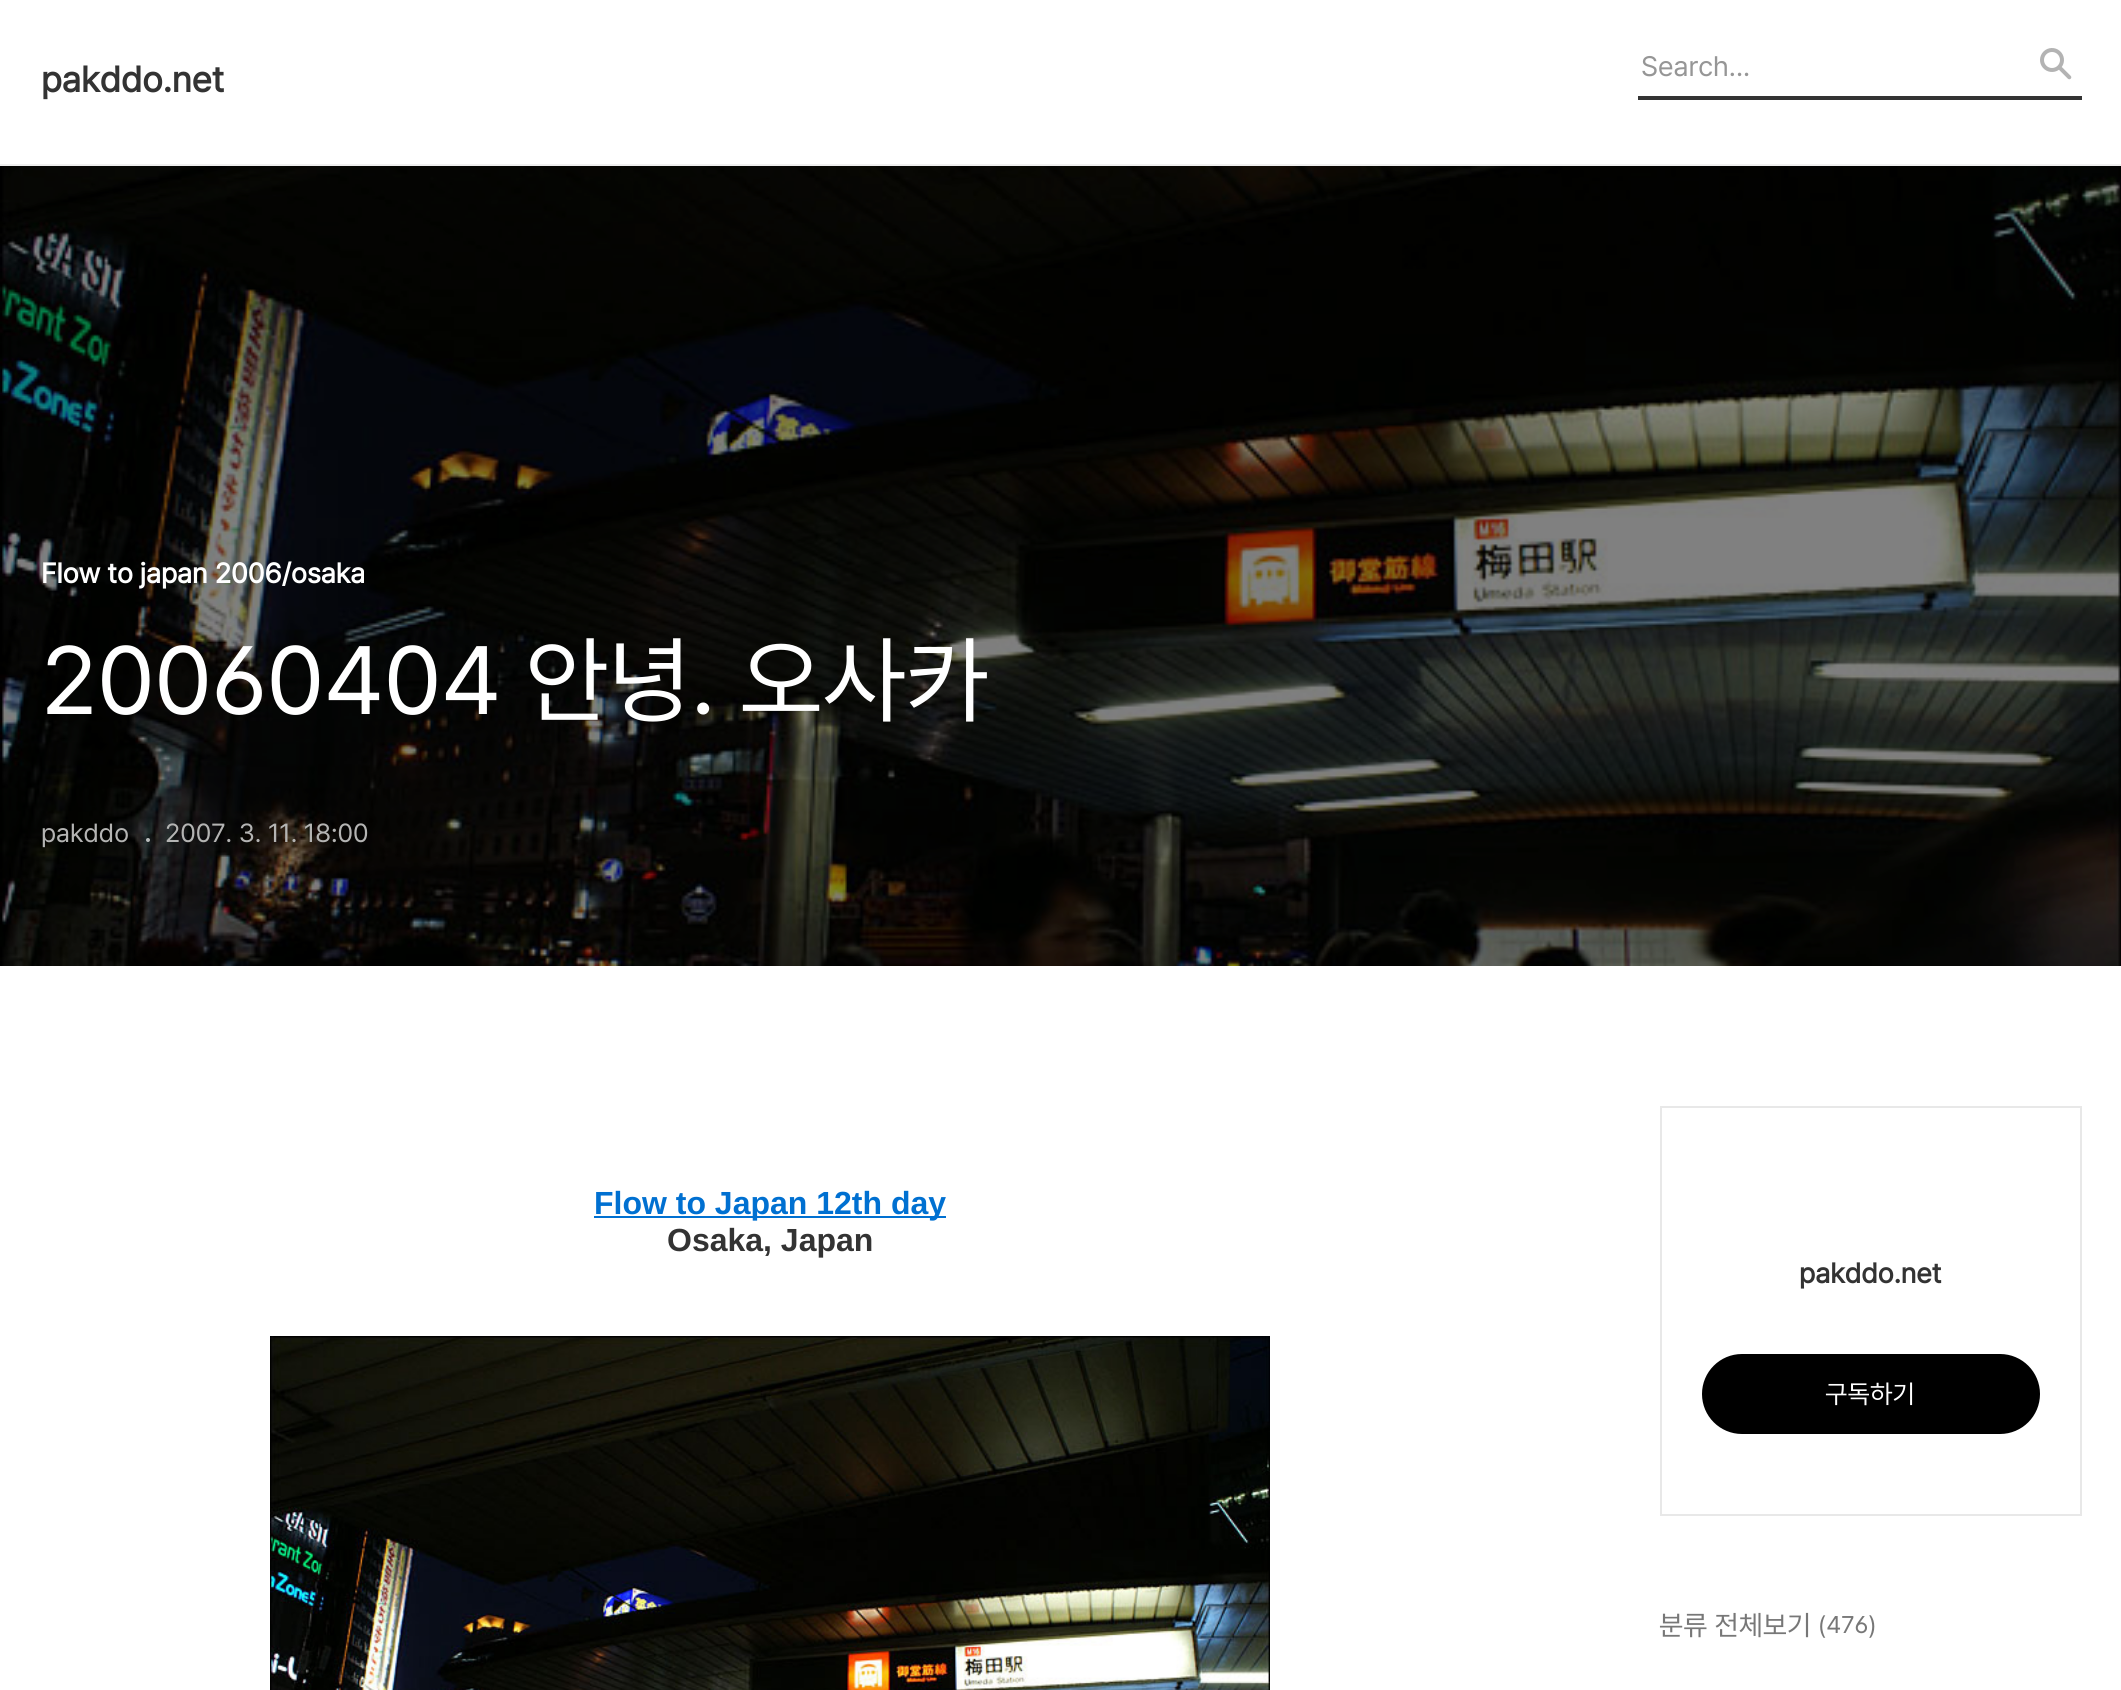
import math
import cairo


def round_path(ctx, x, y, w, h, r):
	ctx.new_sub_path()
	for i, (u, v) in enumerate([(x + w - r, y + h - r), (x + r, y + h - r), (x + r, y + r), (x + w - r, y + r)]):
		ctx.arc(u, v, r, i * math.pi / 2, (i + 1) * math.pi / 2)
	ctx.close_path()

def paste(ctx, path, x, y, w, h):
	ctx.save()
	ctx.set_source_surface(cairo.ImageSurface.create_from_png(path), x, y)
	ctx.rectangle(x, y, w, h)
	ctx.fill()
	ctx.restore()

def draw(ctx):
	ctx.set_source_rgb(1, 1, 1)
	ctx.paint()
	ctx.set_source_rgb(0.937, 0.937, 0.937)
	ctx.rectangle(0, 164, 2121, 2)
	ctx.fill()
	ctx.select_font_face('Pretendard', cairo.FONT_SLANT_NORMAL, cairo.FONT_WEIGHT_BOLD)
	ctx.set_font_size(36)
	ctx.set_source_rgb(0.2, 0.2, 0.2)
	ctx.move_to(41, 92)
	ctx.show_text('pakddo.net')
	paste(ctx, 'media/1.png', 2040, 48, 32, 32)
	ctx.rectangle(1638, 96, 444, 4)
	ctx.fill()
	ctx.select_font_face('Pretendard')
	ctx.set_font_size(28)
	ctx.set_source_rgb(0.588, 0.588, 0.588)
	ctx.move_to(1641, 76)
	ctx.show_text('Search...')
	paste(ctx, 'media/2.png', 0, 166, 2121, 800)
	ctx.select_font_face('Pretendard', cairo.FONT_SLANT_NORMAL, cairo.FONT_WEIGHT_BOLD)
	ctx.set_source_rgb(1, 1, 1)
	ctx.move_to(41, 583)
	ctx.show_text('Flow to japan 2006/osaka')
	ctx.select_font_face('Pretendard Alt')
	ctx.set_font_size(96)
	ctx.move_to(41, 714)
	ctx.show_text('20060404 안녕. 오사카')
	ctx.select_font_face('Pretendard')
	ctx.set_font_size(26)
	ctx.set_source_rgb(0.706, 0.706, 0.702)
	ctx.move_to(41, 842)
	ctx.show_text('pakddo')
	ctx.set_source_rgba(1, 1, 1, 0.7)
	ctx.new_path()
	ctx.arc(148, 840, 2, 0, 2 * math.pi)
	ctx.fill()
	ctx.set_source_rgb(0.706, 0.706, 0.702)
	ctx.move_to(165, 842)
	ctx.show_text('2007. 3. 11. 18:00')
	ctx.set_source_rgb(0, 0.439, 0.82)
	ctx.rectangle(594, 1216, 352, 2)
	ctx.fill()
	ctx.select_font_face('Liberation Sans', cairo.FONT_SLANT_NORMAL, cairo.FONT_WEIGHT_BOLD)
	ctx.set_font_size(32)
	ctx.move_to(594, 1214)
	ctx.show_text('Flow to Japan 12th day')
	ctx.set_source_rgb(0.2, 0.2, 0.2)
	ctx.move_to(667, 1251)
	ctx.show_text('Osaka, Japan')
	paste(ctx, 'media/3.png', 270, 1336, 1000, 354)
	ctx.rectangle(1661, 1107, 420, 408)
	ctx.set_source_rgb(0.91, 0.91, 0.91)
	ctx.stroke()
	ctx.select_font_face('Pretendard', cairo.FONT_SLANT_NORMAL, cairo.FONT_WEIGHT_BOLD)
	ctx.set_font_size(28)
	ctx.set_source_rgb(0.2, 0.2, 0.2)
	ctx.move_to(1799, 1283)
	ctx.show_text('pakddo.net')
	ctx.set_source_rgb(0, 0, 0)
	round_path(ctx, 1703, 1355, 336, 78, 39)
	ctx.fill_preserve()
	ctx.stroke()
	ctx.select_font_face('Pretendard')
	ctx.set_font_size(26)
	ctx.set_source_rgb(1, 1, 1)
	ctx.move_to(1825, 1403)
	ctx.show_text('구독하기')
	ctx.set_font_size(28)
	ctx.set_source_rgb(0.467, 0.467, 0.467)
	ctx.move_to(1659, 1635)
	ctx.show_text('분류 전체보기')
	ctx.select_font_face('Pretendard Alt')
	ctx.set_font_size(24)
	ctx.move_to(1818, 1633)
	ctx.show_text('(476)')


surface = cairo.ImageSurface(cairo.FORMAT_RGB24, 2121, 1690)
ctx = cairo.Context(surface)
options = cairo.FontOptions()
options.set_hint_metrics(cairo.HINT_METRICS_OFF)
options.set_hint_style(cairo.HINT_STYLE_NONE)
ctx.set_font_options(options)
ctx.set_miter_limit(4)
draw(ctx)
surface.write_to_png('image.png')
